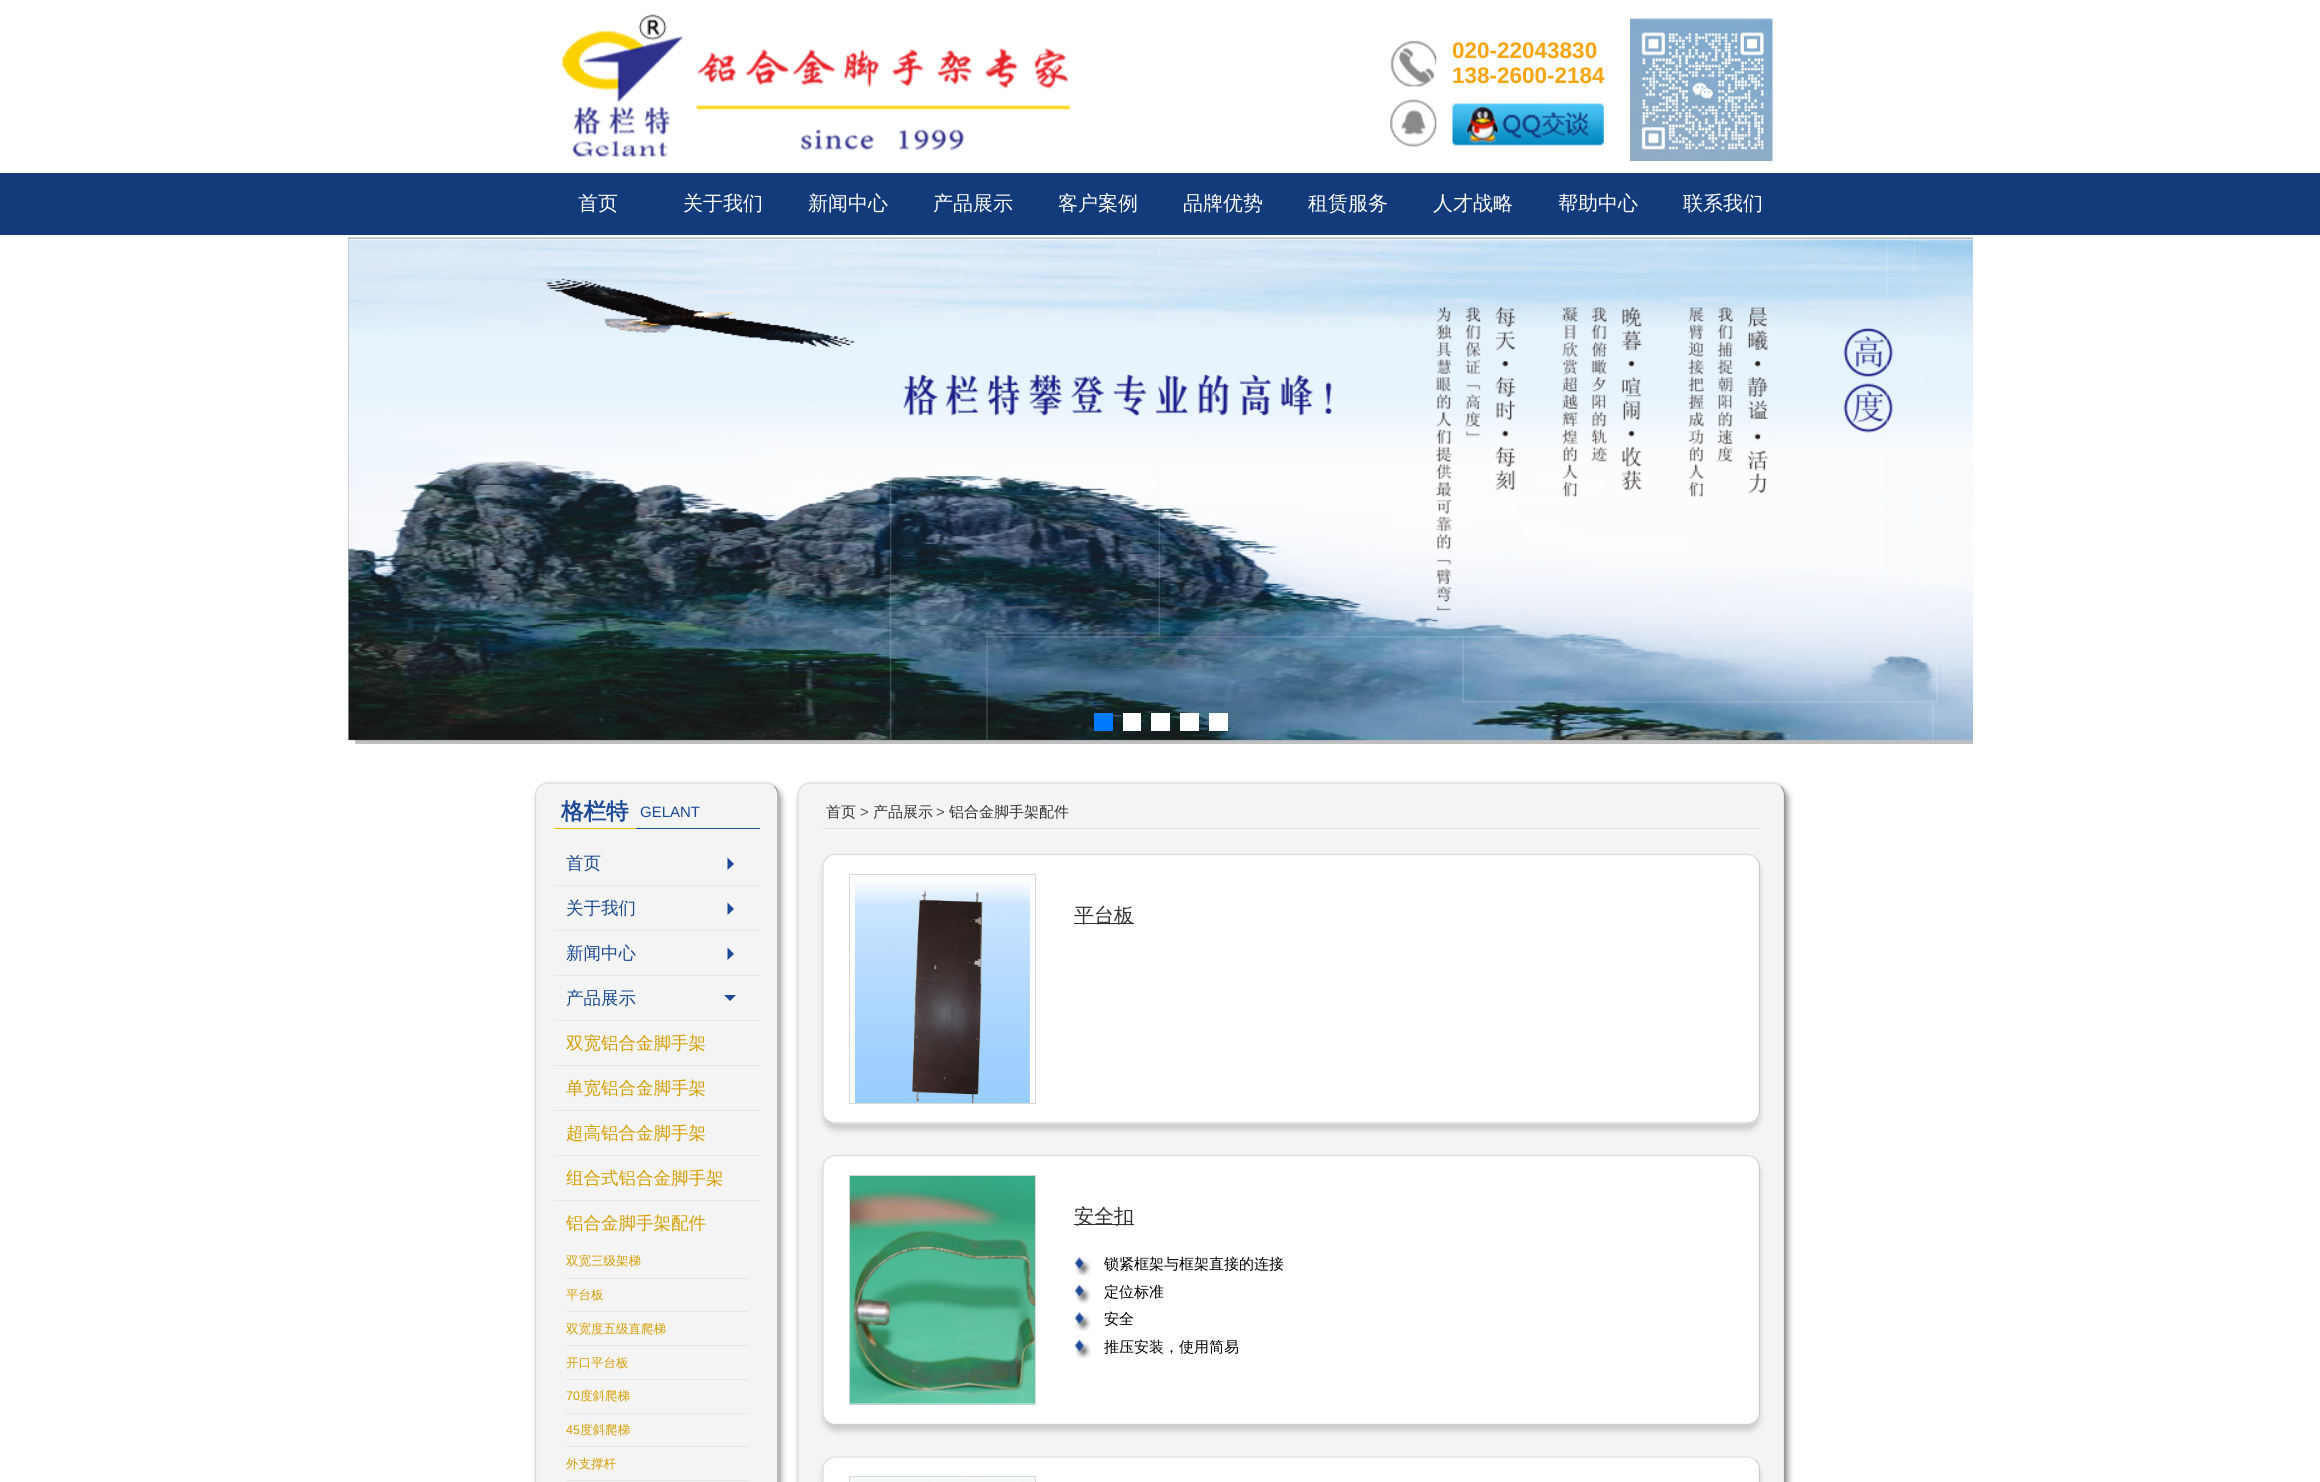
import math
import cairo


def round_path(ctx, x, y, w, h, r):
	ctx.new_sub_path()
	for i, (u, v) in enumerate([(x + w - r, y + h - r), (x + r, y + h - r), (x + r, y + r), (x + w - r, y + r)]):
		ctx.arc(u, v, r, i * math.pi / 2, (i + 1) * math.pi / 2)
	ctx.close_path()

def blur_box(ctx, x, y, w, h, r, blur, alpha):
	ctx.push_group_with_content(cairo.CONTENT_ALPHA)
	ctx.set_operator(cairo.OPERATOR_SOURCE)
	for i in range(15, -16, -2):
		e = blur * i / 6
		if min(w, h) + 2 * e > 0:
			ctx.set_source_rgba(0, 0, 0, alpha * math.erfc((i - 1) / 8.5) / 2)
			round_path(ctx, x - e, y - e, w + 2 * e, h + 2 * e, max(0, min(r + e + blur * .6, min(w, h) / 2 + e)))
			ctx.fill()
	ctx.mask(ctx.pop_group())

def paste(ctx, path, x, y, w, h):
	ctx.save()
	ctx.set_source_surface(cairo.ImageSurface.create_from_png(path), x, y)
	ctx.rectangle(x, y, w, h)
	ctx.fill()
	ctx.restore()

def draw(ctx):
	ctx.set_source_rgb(1, 1, 1)
	ctx.paint()
	paste(ctx, 'media/1.png', 562, 14, 509, 144)
	paste(ctx, 'media/2.png', 1391, 40, 46, 48)
	ctx.select_font_face('Liberation Sans', cairo.FONT_SLANT_NORMAL, cairo.FONT_WEIGHT_BOLD)
	ctx.set_font_size(22.5)
	ctx.set_source_rgb(0.969, 0.647, 0.075)
	ctx.move_to(1452, 58)
	ctx.show_text('020-22043830')
	ctx.move_to(1452, 83)
	ctx.show_text('138-2600-2184')
	paste(ctx, 'media/3.png', 1390, 99, 47, 49)
	paste(ctx, 'media/4.png', 1452, 103, 152, 43)
	paste(ctx, 'media/5.png', 1630, 18, 143, 143)
	ctx.set_source_rgb(0.078, 0.227, 0.482)
	ctx.rectangle(0, 173, 2320, 62)
	ctx.fill()
	ctx.select_font_face('WenQuanYi Zen Hei Medium')
	ctx.set_font_size(20)
	ctx.set_source_rgb(1, 1, 1)
	for x, y, s in [
		(578, 210, '首页'),
		(683, 210, '关于我们'),
		(808, 210, '新闻中心'),
		(933, 210, '产品展示'),
		(1058, 210, '客户案例'),
		(1183, 210, '品牌优势'),
		(1308, 210, '租赁服务'),
		(1433, 210, '人才战略'),
		(1558, 210, '帮助中心'),
		(1683, 210, '联系我们'),
	]:
		ctx.move_to(x, y)
		ctx.show_text(s)
	paste(ctx, 'media/6.png', 348, 235, 1625, 509)
	ctx.set_source_rgb(0, 0.478, 1)
	ctx.rectangle(1094, 713, 19, 18)
	ctx.fill()
	ctx.set_source_rgb(1, 1, 1)
	ctx.rectangle(1123, 713, 18, 18)
	ctx.rectangle(1151, 713, 19, 18)
	ctx.rectangle(1180, 713, 19, 18)
	ctx.rectangle(1209, 713, 19, 18)
	ctx.fill()
	ctx.set_source_rgb(0.576, 0.576, 0.576)
	blur_box(ctx, 538, 786, 243, 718, 13, 3, 1)
	ctx.set_source_rgb(0.957, 0.957, 0.957)
	round_path(ctx, 535, 783, 244, 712, 13)
	ctx.fill()
	ctx.new_path()
	ctx.move_to(774.5, 786.5)
	ctx.curve_to(777, 789, 778, 792, 778, 795)
	ctx.line_to(778, 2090)
	ctx.curve_to(778, 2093, 777, 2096, 774.5, 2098.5)
	ctx.curve_to(772.5, 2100.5, 769.5, 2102, 766, 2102)
	ctx.line_to(547.5, 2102)
	ctx.curve_to(544.5, 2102, 541.5, 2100.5, 539, 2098.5)
	ctx.set_source_rgb(0.576, 0.576, 0.576)
	ctx.set_line_width(1.2)
	ctx.stroke()
	ctx.new_path()
	ctx.move_to(539, 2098.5)
	ctx.curve_to(537, 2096, 535.5, 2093, 535.5, 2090)
	ctx.line_to(535.5, 795)
	ctx.curve_to(535.5, 792, 537, 789, 539, 786.5)
	ctx.curve_to(541.5, 784.5, 544.5, 783, 547.5, 783)
	ctx.line_to(766, 783)
	ctx.curve_to(769.5, 783, 772.5, 784.5, 774.5, 786.5)
	ctx.set_source_rgb(0.859, 0.859, 0.859)
	ctx.stroke()
	ctx.set_source_rgb(0.106, 0.286, 0.592)
	ctx.rectangle(636, 828, 124, 1)
	ctx.fill()
	ctx.set_source_rgb(0.953, 0.722, 0)
	ctx.rectangle(554, 828, 82, 1)
	ctx.fill()
	ctx.select_font_face('WenQuanYi Zen Hei', cairo.FONT_SLANT_NORMAL, cairo.FONT_WEIGHT_BOLD)
	ctx.set_font_size(22.5)
	ctx.set_source_rgb(0.106, 0.286, 0.592)
	ctx.move_to(561, 819)
	ctx.show_text('格栏特')
	ctx.select_font_face('Liberation Sans')
	ctx.set_font_size(15)
	ctx.move_to(640, 817)
	ctx.show_text('GELANT')
	ctx.set_source_rgb(0.898, 0.898, 0.898)
	ctx.rectangle(554, 885, 206, 1)
	ctx.fill()
	ctx.select_font_face('WenQuanYi Zen Hei Medium')
	ctx.set_font_size(17.5)
	ctx.set_source_rgb(0.106, 0.286, 0.592)
	ctx.move_to(566, 869)
	ctx.show_text('首页')
	ctx.new_path()
	ctx.move_to(727.5, 870)
	ctx.line_to(727.5, 857.5)
	ctx.line_to(734, 864)
	ctx.close_path()
	ctx.fill()
	ctx.set_source_rgb(0.898, 0.898, 0.898)
	ctx.rectangle(554, 930, 206, 1)
	ctx.fill()
	ctx.set_source_rgb(0.106, 0.286, 0.592)
	ctx.move_to(566, 914)
	ctx.show_text('关于我们')
	ctx.new_path()
	ctx.move_to(727.5, 915)
	ctx.line_to(727.5, 902.5)
	ctx.line_to(734, 909)
	ctx.close_path()
	ctx.fill()
	ctx.set_source_rgb(0.898, 0.898, 0.898)
	ctx.rectangle(554, 975, 206, 1)
	ctx.fill()
	ctx.set_source_rgb(0.106, 0.286, 0.592)
	ctx.move_to(566, 959)
	ctx.show_text('新闻中心')
	ctx.new_path()
	ctx.move_to(727.5, 960)
	ctx.line_to(727.5, 947.5)
	ctx.line_to(734, 954)
	ctx.close_path()
	ctx.fill()
	ctx.set_source_rgb(0.898, 0.898, 0.898)
	ctx.rectangle(554, 1020, 206, 1)
	ctx.fill()
	ctx.set_source_rgb(0.106, 0.286, 0.592)
	ctx.move_to(566, 1004)
	ctx.show_text('产品展示')
	ctx.new_path()
	ctx.move_to(724, 995)
	ctx.line_to(736, 995)
	ctx.line_to(730, 1001)
	ctx.close_path()
	ctx.fill()
	ctx.set_source_rgb(0.898, 0.898, 0.898)
	ctx.rectangle(554, 1065, 206, 1)
	ctx.fill()
	ctx.set_source_rgb(0.839, 0.616, 0.004)
	ctx.move_to(566, 1049)
	ctx.show_text('双宽铝合金脚手架')
	ctx.set_source_rgb(0.898, 0.898, 0.898)
	ctx.rectangle(554, 1110, 206, 1)
	ctx.fill()
	ctx.set_source_rgb(0.839, 0.616, 0.004)
	ctx.move_to(566, 1094)
	ctx.show_text('单宽铝合金脚手架')
	ctx.set_source_rgb(0.898, 0.898, 0.898)
	ctx.rectangle(554, 1155, 206, 1)
	ctx.fill()
	ctx.set_source_rgb(0.839, 0.616, 0.004)
	ctx.move_to(566, 1139)
	ctx.show_text('超高铝合金脚手架')
	ctx.set_source_rgb(0.898, 0.898, 0.898)
	ctx.rectangle(554, 1200, 206, 1)
	ctx.fill()
	ctx.set_source_rgb(0.839, 0.616, 0.004)
	ctx.move_to(566, 1184)
	ctx.show_text('组合式铝合金脚手架')
	ctx.move_to(566, 1229)
	ctx.show_text('铝合金脚手架配件')
	ctx.set_source_rgb(0.898, 0.898, 0.898)
	ctx.rectangle(566, 1278, 182, 1)
	ctx.fill()
	ctx.set_font_size(12.5)
	ctx.set_source_rgb(0.839, 0.616, 0.004)
	ctx.move_to(566, 1265)
	ctx.show_text('双宽三级架梯')
	ctx.set_source_rgb(0.898, 0.898, 0.898)
	ctx.rectangle(566, 1311, 182, 1)
	ctx.fill()
	ctx.set_source_rgb(0.839, 0.616, 0.004)
	ctx.move_to(566, 1299)
	ctx.show_text('平台板')
	ctx.set_source_rgb(0.898, 0.898, 0.898)
	ctx.rectangle(566, 1345, 182, 1)
	ctx.fill()
	ctx.set_source_rgb(0.839, 0.616, 0.004)
	ctx.move_to(566, 1333)
	ctx.show_text('双宽度五级直爬梯')
	ctx.set_source_rgb(0.898, 0.898, 0.898)
	ctx.rectangle(566, 1379, 182, 1)
	ctx.fill()
	ctx.set_source_rgb(0.839, 0.616, 0.004)
	ctx.move_to(566, 1367)
	ctx.show_text('开口平台板')
	ctx.set_source_rgb(0.898, 0.898, 0.898)
	ctx.rectangle(566, 1413, 182, 1)
	ctx.fill()
	ctx.select_font_face('Liberation Sans')
	ctx.set_source_rgb(0.839, 0.616, 0.004)
	ctx.move_to(566, 1400)
	ctx.show_text('70')
	ctx.select_font_face('WenQuanYi Zen Hei Medium')
	ctx.move_to(580, 1400)
	ctx.show_text('度斜爬梯')
	ctx.set_source_rgb(0.898, 0.898, 0.898)
	ctx.rectangle(566, 1446, 182, 1)
	ctx.fill()
	ctx.select_font_face('Liberation Sans')
	ctx.set_source_rgb(0.839, 0.616, 0.004)
	ctx.move_to(566, 1434)
	ctx.show_text('45')
	ctx.select_font_face('WenQuanYi Zen Hei Medium')
	ctx.move_to(580, 1434)
	ctx.show_text('度斜爬梯')
	ctx.set_source_rgb(0.898, 0.898, 0.898)
	ctx.rectangle(566, 1480, 182, 1)
	ctx.fill()
	ctx.set_source_rgb(0.839, 0.616, 0.004)
	ctx.move_to(566, 1468)
	ctx.show_text('外支撑杆')
	ctx.set_source_rgb(0.576, 0.576, 0.576)
	blur_box(ctx, 800, 786, 988, 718, 13, 3, 1)
	ctx.set_source_rgb(0.957, 0.957, 0.957)
	round_path(ctx, 798, 783, 987, 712, 13)
	ctx.fill()
	ctx.new_path()
	ctx.move_to(1781, 786.5)
	ctx.curve_to(1783, 789, 1784.5, 792, 1784.5, 795)
	ctx.line_to(1784.5, 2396)
	ctx.curve_to(1784.5, 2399.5, 1783, 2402.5, 1781, 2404.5)
	ctx.curve_to(1778.5, 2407, 1775.5, 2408, 1772.5, 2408)
	ctx.line_to(810, 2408)
	ctx.curve_to(807, 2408, 804, 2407, 801.5, 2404.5)
	ctx.set_source_rgb(0.576, 0.576, 0.576)
	ctx.stroke()
	ctx.new_path()
	ctx.move_to(801.5, 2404.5)
	ctx.curve_to(799.5, 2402.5, 798, 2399.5, 798, 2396)
	ctx.line_to(798, 795)
	ctx.curve_to(798, 792, 799.5, 789, 801.5, 786.5)
	ctx.curve_to(804, 784.5, 807, 783, 810, 783)
	ctx.line_to(1772.5, 783)
	ctx.curve_to(1775.5, 783, 1778.5, 784.5, 1781, 786.5)
	ctx.set_source_rgb(0.859, 0.859, 0.859)
	ctx.stroke()
	ctx.set_source_rgb(0.886, 0.886, 0.886)
	ctx.rectangle(823, 828, 937, 1)
	ctx.fill()
	ctx.set_font_size(15)
	ctx.set_source_rgb(0.2, 0.2, 0.2)
	ctx.move_to(826, 817)
	ctx.show_text('首页')
	ctx.select_font_face('Liberation Sans')
	ctx.set_source_rgb(0.333, 0.333, 0.333)
	ctx.move_to(860, 817)
	ctx.show_text('>')
	ctx.select_font_face('WenQuanYi Zen Hei Medium')
	ctx.set_source_rgb(0.2, 0.2, 0.2)
	ctx.move_to(873, 817)
	ctx.show_text('产品展示')
	ctx.select_font_face('Liberation Sans')
	ctx.set_source_rgb(0.333, 0.333, 0.333)
	ctx.move_to(936, 817)
	ctx.show_text('>')
	ctx.select_font_face('WenQuanYi Zen Hei Medium')
	ctx.set_source_rgb(0.2, 0.2, 0.2)
	ctx.move_to(949, 817)
	ctx.show_text('铝合金脚手架配件')
	ctx.set_source_rgb(0.8, 0.8, 0.8)
	blur_box(ctx, 823, 860, 937, 270, 13, 3, 1)
	ctx.set_source_rgb(1, 1, 1)
	round_path(ctx, 823, 854, 937, 270, 13)
	ctx.fill()
	ctx.new_path()
	ctx.move_to(1756, 858)
	ctx.curve_to(1758, 860, 1759.5, 863, 1759.5, 866)
	ctx.line_to(1759.5, 1111)
	ctx.curve_to(1759.5, 1114.5, 1758, 1117.5, 1756, 1119.5)
	ctx.curve_to(1753.5, 1122, 1750.5, 1123, 1747.5, 1123)
	ctx.line_to(835, 1123)
	ctx.curve_to(832, 1123, 829, 1122, 826.5, 1119.5)
	ctx.set_source_rgb(0.8, 0.8, 0.8)
	ctx.stroke()
	ctx.new_path()
	ctx.move_to(826.5, 1119.5)
	ctx.curve_to(824.5, 1117.5, 823, 1114.5, 823, 1111)
	ctx.line_to(823, 866)
	ctx.curve_to(823, 863, 824.5, 860, 826.5, 858)
	ctx.curve_to(829, 855.5, 832, 854.5, 835, 854.5)
	ctx.line_to(1747.5, 854.5)
	ctx.curve_to(1750.5, 854.5, 1753.5, 855.5, 1756, 858)
	ctx.set_source_rgb(0.859, 0.859, 0.859)
	ctx.stroke()
	ctx.rectangle(849.5, 874.5, 186, 229)
	ctx.set_source_rgb(0.847, 0.843, 0.843)
	ctx.set_line_width(1)
	ctx.stroke()
	paste(ctx, 'media/7.png', 855, 881, 175, 222)
	ctx.set_source_rgb(0.2, 0.2, 0.2)
	ctx.rectangle(1074, 923, 60, 1)
	ctx.fill()
	ctx.set_font_size(20)
	ctx.move_to(1074, 922)
	ctx.show_text('平台板')
	ctx.set_source_rgb(0.8, 0.8, 0.8)
	blur_box(ctx, 823, 1161, 937, 270, 13, 3, 1)
	ctx.set_source_rgb(1, 1, 1)
	round_path(ctx, 823, 1155, 937, 270, 13)
	ctx.fill()
	ctx.new_path()
	ctx.move_to(1756, 1159)
	ctx.curve_to(1758, 1161.5, 1759.5, 1164.5, 1759.5, 1167.5)
	ctx.line_to(1759.5, 1412.5)
	ctx.curve_to(1759.5, 1415.5, 1758, 1418.5, 1756, 1421)
	ctx.curve_to(1753.5, 1423, 1750.5, 1424.5, 1747.5, 1424.5)
	ctx.line_to(835, 1424.5)
	ctx.curve_to(832, 1424.5, 829, 1423, 826.5, 1421)
	ctx.set_source_rgb(0.8, 0.8, 0.8)
	ctx.set_line_width(1.2)
	ctx.stroke()
	ctx.new_path()
	ctx.move_to(826.5, 1421)
	ctx.curve_to(824.5, 1418.5, 823, 1415.5, 823, 1412.5)
	ctx.line_to(823, 1167.5)
	ctx.curve_to(823, 1164.5, 824.5, 1161.5, 826.5, 1159)
	ctx.curve_to(829, 1157, 832, 1155.5, 835, 1155.5)
	ctx.line_to(1747.5, 1155.5)
	ctx.curve_to(1750.5, 1155.5, 1753.5, 1157, 1756, 1159)
	ctx.set_source_rgb(0.859, 0.859, 0.859)
	ctx.stroke()
	ctx.rectangle(849.5, 1175.5, 186, 229)
	ctx.set_source_rgb(0.847, 0.843, 0.843)
	ctx.set_line_width(1)
	ctx.stroke()
	paste(ctx, 'media/8.png', 850, 1176, 185, 229)
	ctx.set_source_rgb(0.2, 0.2, 0.2)
	ctx.rectangle(1074, 1224, 60, 1)
	ctx.fill()
	ctx.move_to(1074, 1223)
	ctx.show_text('安全扣')
	paste(ctx, 'media/9.png', 1074, 1257, 17, 19)
	ctx.set_font_size(15)
	ctx.set_source_rgb(0, 0, 0)
	ctx.move_to(1104, 1269)
	ctx.show_text('锁紧框架与框架直接的连接')
	paste(ctx, 'media/10.png', 1074, 1285, 17, 19)
	ctx.move_to(1104, 1297)
	ctx.show_text('定位标准')
	paste(ctx, 'media/9.png', 1074, 1312, 17, 19)
	ctx.move_to(1104, 1324)
	ctx.show_text('安全')
	paste(ctx, 'media/10.png', 1074, 1340, 17, 19)
	ctx.move_to(1104, 1352)
	ctx.show_text('推压安装，使用简易')
	ctx.set_source_rgb(0.8, 0.8, 0.8)
	blur_box(ctx, 823, 1463, 937, 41, 13, 3, 1)
	ctx.set_source_rgb(1, 1, 1)
	round_path(ctx, 823, 1456, 937, 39, 13)
	ctx.fill()
	ctx.new_path()
	ctx.move_to(1756, 1460.5)
	ctx.curve_to(1758, 1462.5, 1759.5, 1465.5, 1759.5, 1469)
	ctx.line_to(1759.5, 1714)
	ctx.curve_to(1759.5, 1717, 1758, 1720, 1756, 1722)
	ctx.curve_to(1753.5, 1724.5, 1750.5, 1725.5, 1747.5, 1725.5)
	ctx.line_to(835, 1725.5)
	ctx.curve_to(832, 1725.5, 829, 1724.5, 826.5, 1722)
	ctx.set_source_rgb(0.8, 0.8, 0.8)
	ctx.set_line_width(1.2)
	ctx.stroke()
	ctx.new_path()
	ctx.move_to(826.5, 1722)
	ctx.curve_to(824.5, 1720, 823, 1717, 823, 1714)
	ctx.line_to(823, 1469)
	ctx.curve_to(823, 1465.5, 824.5, 1462.5, 826.5, 1460.5)
	ctx.curve_to(829, 1458, 832, 1457, 835, 1457)
	ctx.line_to(1747.5, 1457)
	ctx.curve_to(1750.5, 1457, 1753.5, 1458, 1756, 1460.5)
	ctx.set_source_rgb(0.859, 0.859, 0.859)
	ctx.stroke()
	ctx.rectangle(849.5, 1476.5, 186, 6)
	ctx.set_source_rgb(0.847, 0.843, 0.843)
	ctx.set_line_width(1)
	ctx.stroke()
	paste(ctx, 'media/11.png', 850, 1477, 185, 5)


surface = cairo.ImageSurface(cairo.FORMAT_RGB24, 2320, 1482)
ctx = cairo.Context(surface)
options = cairo.FontOptions()
options.set_hint_metrics(cairo.HINT_METRICS_OFF)
options.set_hint_style(cairo.HINT_STYLE_NONE)
ctx.set_font_options(options)
ctx.set_miter_limit(4)
draw(ctx)
surface.write_to_png('image.png')
